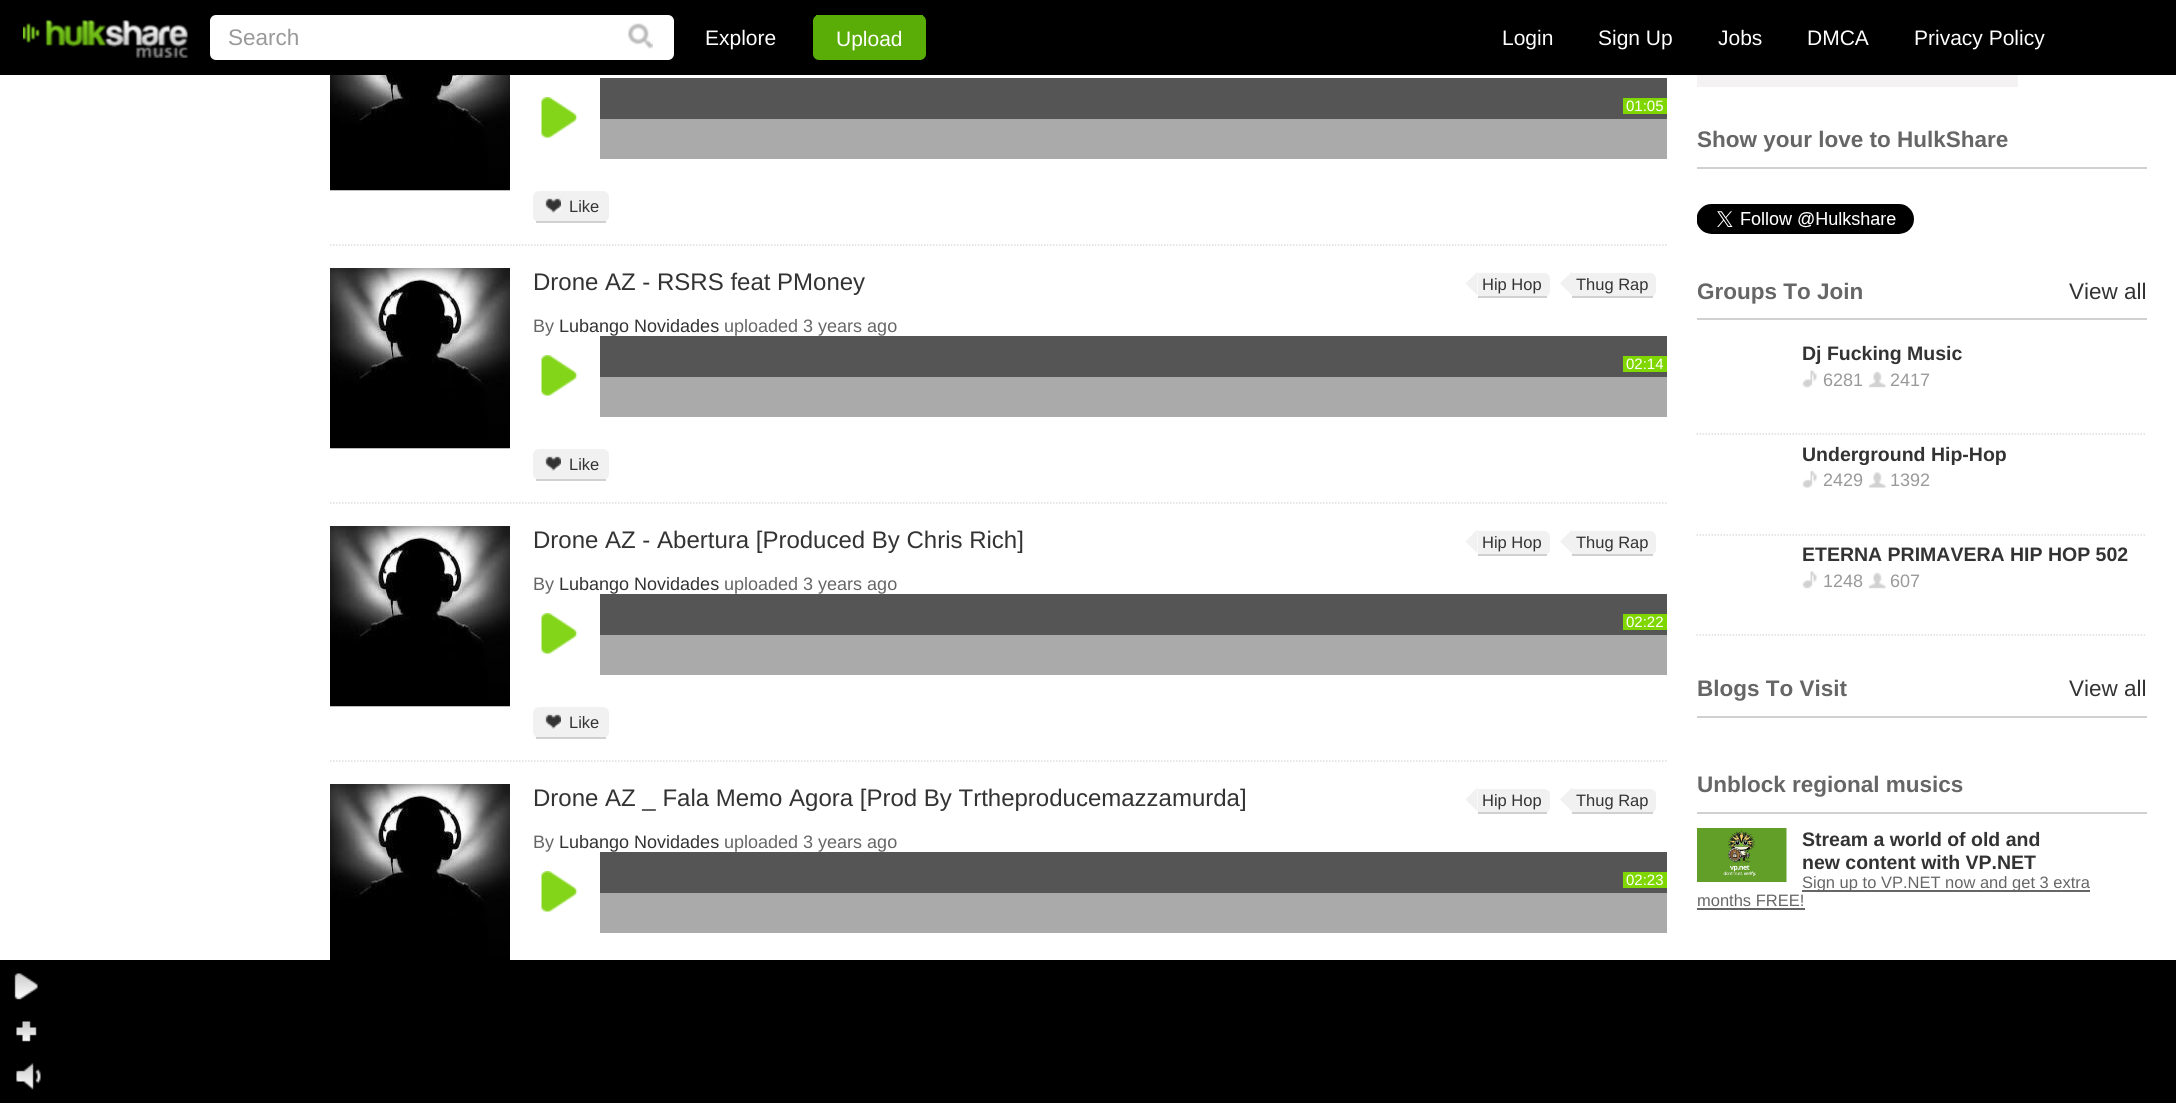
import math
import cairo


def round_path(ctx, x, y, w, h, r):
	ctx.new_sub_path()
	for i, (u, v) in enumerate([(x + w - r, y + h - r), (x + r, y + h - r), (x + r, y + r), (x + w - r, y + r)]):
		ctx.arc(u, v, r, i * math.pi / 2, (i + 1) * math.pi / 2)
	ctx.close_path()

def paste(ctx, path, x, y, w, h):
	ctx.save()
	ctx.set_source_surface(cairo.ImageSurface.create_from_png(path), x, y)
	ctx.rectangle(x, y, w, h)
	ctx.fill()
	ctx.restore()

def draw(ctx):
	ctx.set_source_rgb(1, 1, 1)
	ctx.paint()
	ctx.set_source_rgb(0, 0, 0)
	ctx.rectangle(0, 0, 2176, 75)
	ctx.fill()
	paste(ctx, 'media/1.png', 23, 20, 165, 38)
	ctx.set_source_rgb(1, 1, 1)
	round_path(ctx, 211.5, 16.5, 461, 42, 4.5)
	ctx.fill_preserve()
	ctx.set_line_width(3)
	ctx.stroke()
	ctx.select_font_face('Liberation Sans')
	ctx.set_font_size(22.5)
	ctx.set_source_rgb(0.6, 0.6, 0.6)
	ctx.move_to(228, 45)
	ctx.show_text('Search')
	paste(ctx, 'media/2.png', 628, 23, 25, 26)
	ctx.set_font_size(21)
	ctx.set_source_rgb(1, 1, 1)
	ctx.move_to(705, 45)
	ctx.show_text('Explore')
	ctx.set_source_rgb(0.353, 0.678, 0.027)
	round_path(ctx, 813, 15, 113, 45, 6)
	ctx.fill()
	ctx.rectangle(816, 15, 107, 1)
	ctx.fill()
	ctx.set_source_rgb(1, 1, 1)
	for x, y, s in [
		(836, 46, 'Upload'),
		(1502, 45, 'Login'),
		(1598, 45, 'Sign Up'),
		(1718, 45, 'Jobs'),
		(1807, 45, 'DMCA'),
		(1914, 45, 'Privacy Policy'),
	]:
		ctx.move_to(x, y)
		ctx.show_text(s)
	ctx.new_path()
	ctx.move_to(330, 245)
	ctx.line_to(1666.5, 245)
	ctx.set_source_rgb(0.863, 0.863, 0.863)
	ctx.set_line_width(1.5)
	ctx.set_dash([1.5, 1.5])
	ctx.stroke()
	ctx.set_source_rgb(0.737, 0.737, 0.737)
	ctx.rectangle(330, 190, 180, 1)
	ctx.fill()
	paste(ctx, 'media/3.png', 330, 75, 180, 115)
	paste(ctx, 'media/4.png', 541, 97, 37, 41)
	ctx.set_source_rgb(0.333, 0.333, 0.333)
	ctx.rectangle(600, 78, 1067, 41)
	ctx.fill()
	ctx.set_source_rgb(0.502, 0.843, 0)
	ctx.rectangle(1623, 98, 44, 16)
	ctx.fill()
	ctx.set_font_size(15)
	ctx.set_source_rgb(1, 1, 1)
	ctx.move_to(1626, 111)
	ctx.show_text('01:05')
	ctx.set_source_rgb(0.667, 0.667, 0.667)
	ctx.rectangle(600, 119, 1067, 40)
	ctx.fill()
	ctx.set_source_rgb(0.945, 0.945, 0.945)
	round_path(ctx, 533, 191, 76, 31, 6)
	ctx.fill()
	ctx.set_source_rgb(0.816, 0.816, 0.816)
	ctx.rectangle(536, 221, 70, 2)
	ctx.fill()
	paste(ctx, 'media/5.png', 545, 198, 16, 15)
	ctx.set_font_size(16.5)
	ctx.set_source_rgb(0.2, 0.2, 0.2)
	ctx.move_to(569, 212)
	ctx.show_text('Like')
	ctx.new_path()
	ctx.move_to(330, 503)
	ctx.line_to(1666.5, 503)
	ctx.set_source_rgb(0.863, 0.863, 0.863)
	ctx.stroke()
	ctx.set_source_rgb(0.737, 0.737, 0.737)
	ctx.rectangle(330, 448, 180, 1)
	ctx.fill()
	paste(ctx, 'media/6.png', 330, 268, 180, 180)
	ctx.set_font_size(24)
	ctx.set_source_rgb(0.2, 0.2, 0.2)
	ctx.move_to(533, 290)
	ctx.show_text('Drone AZ - RSRS feat PMoney')
	ctx.set_source_rgb(0.945, 0.945, 0.945)
	ctx.new_path()
	ctx.move_to(1478, 273)
	ctx.line_to(1544, 273)
	ctx.curve_to(1547.5, 273, 1550, 275.5, 1550, 279)
	ctx.line_to(1550, 291)
	ctx.curve_to(1550, 294.5, 1547.5, 297, 1544, 297)
	ctx.line_to(1478, 297)
	ctx.close_path()
	ctx.fill()
	ctx.set_source_rgb(0.816, 0.816, 0.816)
	ctx.rectangle(1478, 296, 69, 2)
	ctx.fill()
	ctx.set_source_rgb(0.945, 0.945, 0.945)
	ctx.new_path()
	ctx.move_to(1477.5, 271.5)
	ctx.line_to(1477.5, 295.5)
	ctx.line_to(1465.5, 283.5)
	ctx.close_path()
	ctx.fill()
	ctx.set_font_size(16.5)
	ctx.set_source_rgb(0.2, 0.2, 0.2)
	ctx.move_to(1482, 290)
	ctx.show_text('Hip Hop')
	ctx.set_source_rgb(0.945, 0.945, 0.945)
	ctx.new_path()
	ctx.move_to(1572, 273)
	ctx.line_to(1650, 273)
	ctx.curve_to(1653.5, 273, 1656, 275.5, 1656, 279)
	ctx.line_to(1656, 291)
	ctx.curve_to(1656, 294.5, 1653.5, 297, 1650, 297)
	ctx.line_to(1572, 297)
	ctx.close_path()
	ctx.fill()
	ctx.set_source_rgb(0.816, 0.816, 0.816)
	ctx.rectangle(1572, 296, 81, 2)
	ctx.fill()
	ctx.set_source_rgb(0.945, 0.945, 0.945)
	ctx.new_path()
	ctx.move_to(1572, 271.5)
	ctx.line_to(1572, 295.5)
	ctx.line_to(1560, 283.5)
	ctx.close_path()
	ctx.fill()
	ctx.set_source_rgb(0.2, 0.2, 0.2)
	ctx.move_to(1576, 290)
	ctx.show_text('Thug Rap')
	ctx.set_font_size(18)
	ctx.set_source_rgb(0.4, 0.4, 0.4)
	ctx.move_to(533, 332)
	ctx.show_text('By')
	ctx.set_source_rgb(0.2, 0.2, 0.2)
	ctx.move_to(559, 332)
	ctx.show_text('Lubango Novidades')
	ctx.set_source_rgb(0.4, 0.4, 0.4)
	ctx.move_to(724, 332)
	ctx.show_text('uploaded 3 years ago')
	paste(ctx, 'media/4.png', 541, 355, 37, 41)
	ctx.set_source_rgb(0.333, 0.333, 0.333)
	ctx.rectangle(600, 336, 1067, 41)
	ctx.fill()
	ctx.set_source_rgb(0.502, 0.843, 0)
	ctx.rectangle(1623, 356, 44, 16)
	ctx.fill()
	ctx.set_font_size(15)
	ctx.set_source_rgb(1, 1, 1)
	ctx.move_to(1626, 369)
	ctx.show_text('02:14')
	ctx.set_source_rgb(0.667, 0.667, 0.667)
	ctx.rectangle(600, 377, 1067, 40)
	ctx.fill()
	ctx.set_source_rgb(0.945, 0.945, 0.945)
	round_path(ctx, 533, 449, 76, 31, 6)
	ctx.fill()
	ctx.set_source_rgb(0.816, 0.816, 0.816)
	ctx.rectangle(536, 479, 70, 2)
	ctx.fill()
	paste(ctx, 'media/5.png', 545, 456, 16, 15)
	ctx.set_font_size(16.5)
	ctx.set_source_rgb(0.2, 0.2, 0.2)
	ctx.move_to(569, 470)
	ctx.show_text('Like')
	ctx.new_path()
	ctx.move_to(330, 761)
	ctx.line_to(1666.5, 761)
	ctx.set_source_rgb(0.863, 0.863, 0.863)
	ctx.stroke()
	ctx.set_source_rgb(0.737, 0.737, 0.737)
	ctx.rectangle(330, 706, 180, 1)
	ctx.fill()
	paste(ctx, 'media/6.png', 330, 526, 180, 180)
	ctx.set_font_size(24)
	ctx.set_source_rgb(0.2, 0.2, 0.2)
	ctx.move_to(533, 548)
	ctx.show_text('Drone AZ - Abertura [Produced By Chris Rich]')
	ctx.set_source_rgb(0.945, 0.945, 0.945)
	ctx.new_path()
	ctx.move_to(1478, 531)
	ctx.line_to(1544, 531)
	ctx.curve_to(1547.5, 531, 1550, 533.5, 1550, 537)
	ctx.line_to(1550, 549)
	ctx.curve_to(1550, 552.5, 1547.5, 555, 1544, 555)
	ctx.line_to(1478, 555)
	ctx.close_path()
	ctx.fill()
	ctx.set_source_rgb(0.816, 0.816, 0.816)
	ctx.rectangle(1478, 554, 69, 2)
	ctx.fill()
	ctx.set_source_rgb(0.945, 0.945, 0.945)
	ctx.new_path()
	ctx.move_to(1477.5, 529.5)
	ctx.line_to(1477.5, 553.5)
	ctx.line_to(1465.5, 541.5)
	ctx.close_path()
	ctx.fill()
	ctx.set_font_size(16.5)
	ctx.set_source_rgb(0.2, 0.2, 0.2)
	ctx.move_to(1482, 548)
	ctx.show_text('Hip Hop')
	ctx.set_source_rgb(0.945, 0.945, 0.945)
	ctx.new_path()
	ctx.move_to(1572, 531)
	ctx.line_to(1650, 531)
	ctx.curve_to(1653.5, 531, 1656, 533.5, 1656, 537)
	ctx.line_to(1656, 549)
	ctx.curve_to(1656, 552.5, 1653.5, 555, 1650, 555)
	ctx.line_to(1572, 555)
	ctx.close_path()
	ctx.fill()
	ctx.set_source_rgb(0.816, 0.816, 0.816)
	ctx.rectangle(1572, 554, 81, 2)
	ctx.fill()
	ctx.set_source_rgb(0.945, 0.945, 0.945)
	ctx.new_path()
	ctx.move_to(1572, 529.5)
	ctx.line_to(1572, 553.5)
	ctx.line_to(1560, 541.5)
	ctx.close_path()
	ctx.fill()
	ctx.set_source_rgb(0.2, 0.2, 0.2)
	ctx.move_to(1576, 548)
	ctx.show_text('Thug Rap')
	ctx.set_font_size(18)
	ctx.set_source_rgb(0.4, 0.4, 0.4)
	ctx.move_to(533, 590)
	ctx.show_text('By')
	ctx.set_source_rgb(0.2, 0.2, 0.2)
	ctx.move_to(559, 590)
	ctx.show_text('Lubango Novidades')
	ctx.set_source_rgb(0.4, 0.4, 0.4)
	ctx.move_to(724, 590)
	ctx.show_text('uploaded 3 years ago')
	paste(ctx, 'media/4.png', 541, 613, 37, 41)
	ctx.set_source_rgb(0.333, 0.333, 0.333)
	ctx.rectangle(600, 594, 1067, 41)
	ctx.fill()
	ctx.set_source_rgb(0.502, 0.843, 0)
	ctx.rectangle(1623, 614, 44, 16)
	ctx.fill()
	ctx.set_font_size(15)
	ctx.set_source_rgb(1, 1, 1)
	ctx.move_to(1626, 627)
	ctx.show_text('02:22')
	ctx.set_source_rgb(0.667, 0.667, 0.667)
	ctx.rectangle(600, 635, 1067, 40)
	ctx.fill()
	ctx.set_source_rgb(0.945, 0.945, 0.945)
	round_path(ctx, 533, 707, 76, 31, 6)
	ctx.fill()
	ctx.set_source_rgb(0.816, 0.816, 0.816)
	ctx.rectangle(536, 737, 70, 2)
	ctx.fill()
	paste(ctx, 'media/5.png', 545, 714, 16, 15)
	ctx.set_font_size(16.5)
	ctx.set_source_rgb(0.2, 0.2, 0.2)
	ctx.move_to(569, 728)
	ctx.show_text('Like')
	paste(ctx, 'media/7.png', 330, 784, 180, 176)
	ctx.set_font_size(24)
	ctx.move_to(533, 806)
	ctx.show_text('Drone AZ _ Fala Memo Agora [Prod By Trtheproducemazzamurda]')
	ctx.set_source_rgb(0.945, 0.945, 0.945)
	ctx.new_path()
	ctx.move_to(1478, 789)
	ctx.line_to(1544, 789)
	ctx.curve_to(1547.5, 789, 1550, 791.5, 1550, 795)
	ctx.line_to(1550, 807)
	ctx.curve_to(1550, 810.5, 1547.5, 813, 1544, 813)
	ctx.line_to(1478, 813)
	ctx.close_path()
	ctx.fill()
	ctx.set_source_rgb(0.816, 0.816, 0.816)
	ctx.rectangle(1478, 812, 69, 2)
	ctx.fill()
	ctx.set_source_rgb(0.945, 0.945, 0.945)
	ctx.new_path()
	ctx.move_to(1477.5, 787.5)
	ctx.line_to(1477.5, 811.5)
	ctx.line_to(1465.5, 799.5)
	ctx.close_path()
	ctx.fill()
	ctx.set_font_size(16.5)
	ctx.set_source_rgb(0.2, 0.2, 0.2)
	ctx.move_to(1482, 806)
	ctx.show_text('Hip Hop')
	ctx.set_source_rgb(0.945, 0.945, 0.945)
	ctx.new_path()
	ctx.move_to(1572, 789)
	ctx.line_to(1650, 789)
	ctx.curve_to(1653.5, 789, 1656, 791.5, 1656, 795)
	ctx.line_to(1656, 807)
	ctx.curve_to(1656, 810.5, 1653.5, 813, 1650, 813)
	ctx.line_to(1572, 813)
	ctx.close_path()
	ctx.fill()
	ctx.set_source_rgb(0.816, 0.816, 0.816)
	ctx.rectangle(1572, 812, 81, 2)
	ctx.fill()
	ctx.set_source_rgb(0.945, 0.945, 0.945)
	ctx.new_path()
	ctx.move_to(1572, 787.5)
	ctx.line_to(1572, 811.5)
	ctx.line_to(1560, 799.5)
	ctx.close_path()
	ctx.fill()
	ctx.set_source_rgb(0.2, 0.2, 0.2)
	ctx.move_to(1576, 806)
	ctx.show_text('Thug Rap')
	ctx.set_font_size(18)
	ctx.set_source_rgb(0.4, 0.4, 0.4)
	ctx.move_to(533, 848)
	ctx.show_text('By')
	ctx.set_source_rgb(0.2, 0.2, 0.2)
	ctx.move_to(559, 848)
	ctx.show_text('Lubango Novidades')
	ctx.set_source_rgb(0.4, 0.4, 0.4)
	ctx.move_to(724, 848)
	ctx.show_text('uploaded 3 years ago')
	paste(ctx, 'media/4.png', 541, 871, 37, 41)
	ctx.set_source_rgb(0.333, 0.333, 0.333)
	ctx.rectangle(600, 852, 1067, 41)
	ctx.fill()
	ctx.set_source_rgb(0.502, 0.843, 0)
	ctx.rectangle(1623, 872, 44, 16)
	ctx.fill()
	ctx.set_font_size(15)
	ctx.set_source_rgb(1, 1, 1)
	ctx.move_to(1626, 885)
	ctx.show_text('02:23')
	ctx.set_source_rgb(0.667, 0.667, 0.667)
	ctx.rectangle(600, 893, 1067, 40)
	ctx.fill()
	ctx.set_source_rgb(0.957, 0.949, 0.949)
	ctx.rectangle(1697, 75, 321, 12)
	ctx.fill()
	ctx.set_source_rgb(0.816, 0.816, 0.816)
	ctx.rectangle(1697, 167, 450, 2)
	ctx.fill()
	ctx.select_font_face('Liberation Sans', cairo.FONT_SLANT_NORMAL, cairo.FONT_WEIGHT_BOLD)
	ctx.set_font_size(22.5)
	ctx.set_source_rgb(0.4, 0.4, 0.4)
	ctx.move_to(1697, 147)
	ctx.show_text('Show your love to HulkShare')
	paste(ctx, 'media/8.png', 1697, 204, 217, 30)
	ctx.set_source_rgb(0.816, 0.816, 0.816)
	ctx.rectangle(1697, 318, 450, 2)
	ctx.fill()
	ctx.set_source_rgb(0.4, 0.4, 0.4)
	ctx.move_to(1697, 299)
	ctx.show_text('Groups To Join')
	ctx.select_font_face('Liberation Sans')
	ctx.set_source_rgb(0.2, 0.2, 0.2)
	ctx.move_to(2069, 299)
	ctx.show_text('View all')
	ctx.new_path()
	ctx.move_to(1696.5, 434)
	ctx.line_to(2146.5, 434)
	ctx.set_source_rgb(0.863, 0.863, 0.863)
	ctx.stroke()
	ctx.select_font_face('Liberation Sans', cairo.FONT_SLANT_NORMAL, cairo.FONT_WEIGHT_BOLD)
	ctx.set_font_size(19.5)
	ctx.set_source_rgb(0.2, 0.2, 0.2)
	ctx.move_to(1802, 360)
	ctx.show_text('Dj Fucking Music')
	paste(ctx, 'media/9.png', 1802, 370, 15, 18)
	ctx.select_font_face('Liberation Sans')
	ctx.set_font_size(18)
	ctx.set_source_rgb(0.6, 0.6, 0.6)
	ctx.move_to(1823, 386)
	ctx.show_text('6281')
	paste(ctx, 'media/10.png', 1869, 371, 17, 17)
	ctx.move_to(1890, 386)
	ctx.show_text('2417')
	ctx.new_path()
	ctx.move_to(1696.5, 535)
	ctx.line_to(2146.5, 535)
	ctx.set_source_rgb(0.863, 0.863, 0.863)
	ctx.stroke()
	ctx.save()
	ctx.rectangle(1802, 443, 345, 22)
	ctx.clip()
	ctx.select_font_face('Liberation Sans', cairo.FONT_SLANT_NORMAL, cairo.FONT_WEIGHT_BOLD)
	ctx.set_font_size(19.5)
	ctx.set_source_rgb(0.2, 0.2, 0.2)
	ctx.move_to(1802, 461)
	ctx.show_text('Underground Hip-Hop')
	ctx.restore()
	paste(ctx, 'media/11.png', 1802, 470, 15, 18)
	ctx.set_source_rgb(0.6, 0.6, 0.6)
	ctx.move_to(1823, 486)
	ctx.show_text('2429')
	paste(ctx, 'media/12.png', 1869, 472, 17, 16)
	ctx.move_to(1890, 486)
	ctx.show_text('1392')
	ctx.new_path()
	ctx.move_to(1696.5, 635)
	ctx.line_to(2146.5, 635)
	ctx.set_source_rgb(0.863, 0.863, 0.863)
	ctx.stroke()
	ctx.select_font_face('Liberation Sans', cairo.FONT_SLANT_NORMAL, cairo.FONT_WEIGHT_BOLD)
	ctx.set_font_size(19.5)
	ctx.set_source_rgb(0.2, 0.2, 0.2)
	ctx.move_to(1802, 561)
	ctx.show_text('ETERNA PRIMAVERA HIP HOP 502')
	paste(ctx, 'media/9.png', 1802, 571, 15, 18)
	ctx.select_font_face('Liberation Sans')
	ctx.set_font_size(18)
	ctx.set_source_rgb(0.6, 0.6, 0.6)
	ctx.move_to(1823, 587)
	ctx.show_text('1248')
	paste(ctx, 'media/10.png', 1869, 572, 17, 17)
	ctx.move_to(1890, 587)
	ctx.show_text('607')
	ctx.set_source_rgb(0.816, 0.816, 0.816)
	ctx.rectangle(1697, 716, 450, 2)
	ctx.fill()
	ctx.select_font_face('Liberation Sans', cairo.FONT_SLANT_NORMAL, cairo.FONT_WEIGHT_BOLD)
	ctx.set_font_size(22.5)
	ctx.set_source_rgb(0.4, 0.4, 0.4)
	ctx.move_to(1697, 696)
	ctx.show_text('Blogs To Visit')
	ctx.select_font_face('Liberation Sans')
	ctx.set_source_rgb(0.2, 0.2, 0.2)
	ctx.move_to(2069, 696)
	ctx.show_text('View all')
	ctx.set_source_rgb(0.816, 0.816, 0.816)
	ctx.rectangle(1697, 812, 450, 2)
	ctx.fill()
	ctx.select_font_face('Liberation Sans', cairo.FONT_SLANT_NORMAL, cairo.FONT_WEIGHT_BOLD)
	ctx.set_source_rgb(0.4, 0.4, 0.4)
	ctx.move_to(1697, 792)
	ctx.show_text('Unblock regional musics')
	paste(ctx, 'media/13.png', 1697, 828, 90, 54)
	ctx.set_font_size(19.5)
	ctx.set_source_rgb(0.2, 0.2, 0.2)
	ctx.move_to(1802, 846)
	ctx.show_text('Stream a world of old and')
	ctx.move_to(1802, 869)
	ctx.show_text('new content with VP.NET')
	ctx.set_source_rgb(0.4, 0.4, 0.4)
	ctx.rectangle(1802, 890, 288, 2)
	ctx.fill()
	ctx.select_font_face('Liberation Sans')
	ctx.set_font_size(16.5)
	ctx.move_to(1802, 888)
	ctx.show_text('Sign up to VP.NET now and get 3 extra')
	ctx.move_to(1697, 906)
	ctx.show_text('months FREE!')
	ctx.rectangle(1697, 908, 108, 2)
	ctx.fill()
	ctx.set_source_rgb(0, 0, 0)
	ctx.rectangle(0, 960, 2176, 143)
	ctx.fill()
	paste(ctx, 'media/14.png', 14, 973, 24, 27)
	paste(ctx, 'media/15.png', 16, 1021, 21, 21)
	paste(ctx, 'media/16.png', 16, 1063, 25, 27)


surface = cairo.ImageSurface(cairo.FORMAT_RGB24, 2176, 1103)
ctx = cairo.Context(surface)
options = cairo.FontOptions()
options.set_hint_metrics(cairo.HINT_METRICS_OFF)
options.set_hint_style(cairo.HINT_STYLE_NONE)
ctx.set_font_options(options)
ctx.set_miter_limit(4)
draw(ctx)
surface.write_to_png('image.png')
